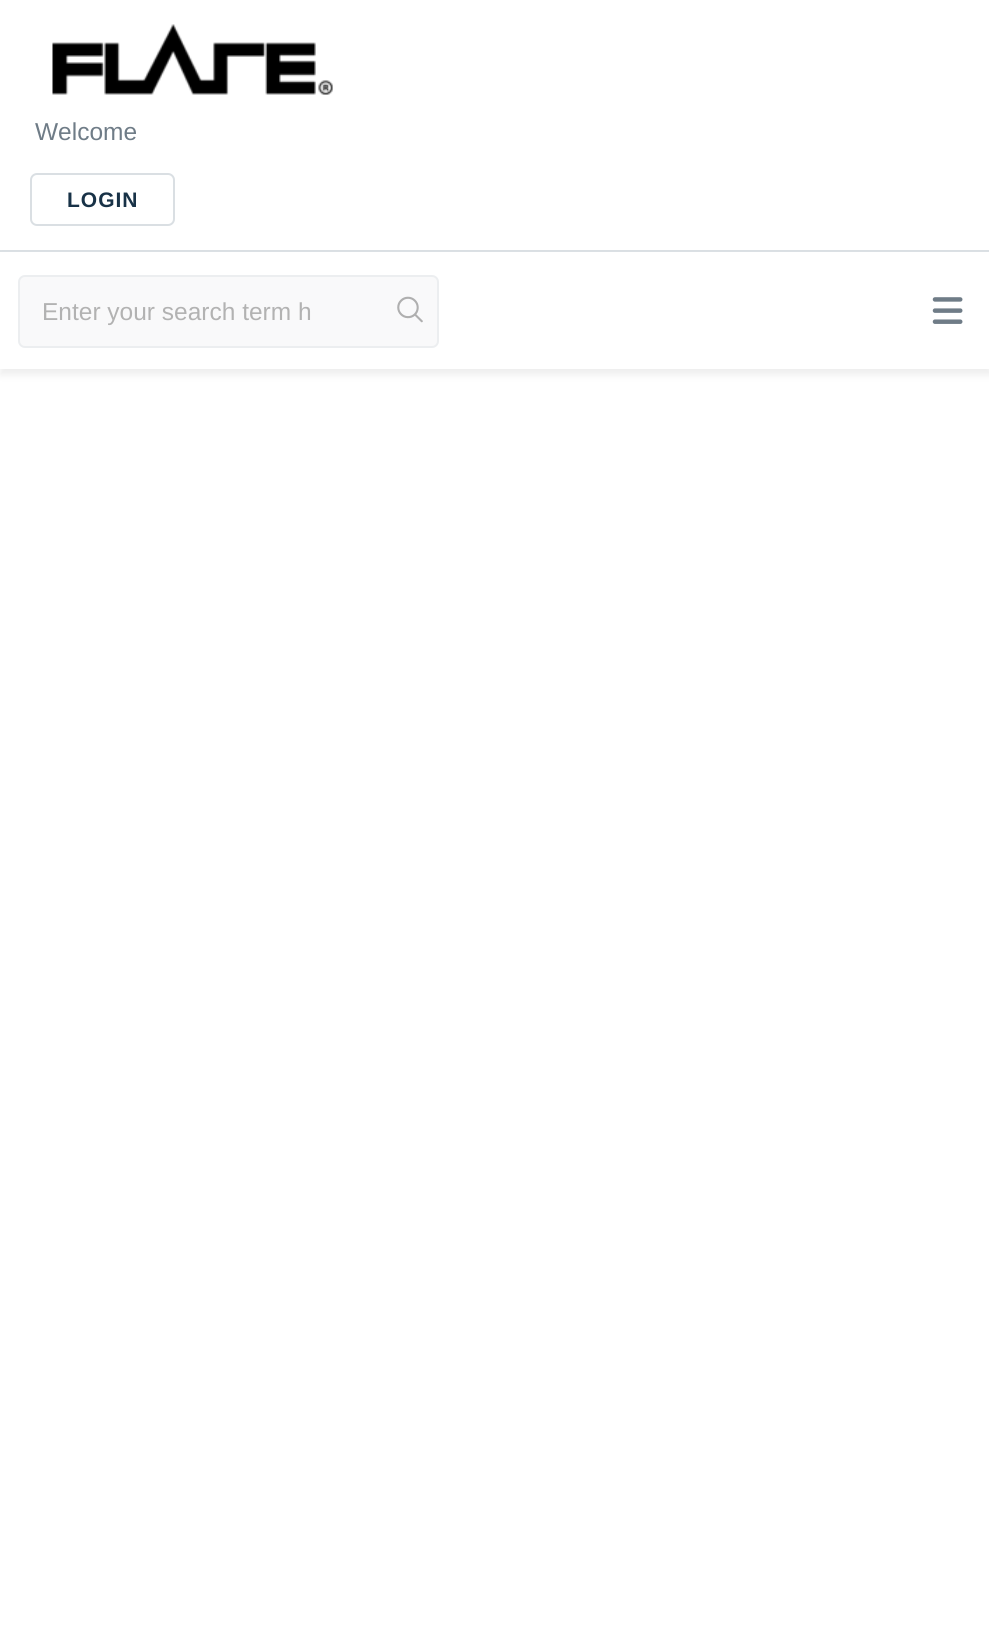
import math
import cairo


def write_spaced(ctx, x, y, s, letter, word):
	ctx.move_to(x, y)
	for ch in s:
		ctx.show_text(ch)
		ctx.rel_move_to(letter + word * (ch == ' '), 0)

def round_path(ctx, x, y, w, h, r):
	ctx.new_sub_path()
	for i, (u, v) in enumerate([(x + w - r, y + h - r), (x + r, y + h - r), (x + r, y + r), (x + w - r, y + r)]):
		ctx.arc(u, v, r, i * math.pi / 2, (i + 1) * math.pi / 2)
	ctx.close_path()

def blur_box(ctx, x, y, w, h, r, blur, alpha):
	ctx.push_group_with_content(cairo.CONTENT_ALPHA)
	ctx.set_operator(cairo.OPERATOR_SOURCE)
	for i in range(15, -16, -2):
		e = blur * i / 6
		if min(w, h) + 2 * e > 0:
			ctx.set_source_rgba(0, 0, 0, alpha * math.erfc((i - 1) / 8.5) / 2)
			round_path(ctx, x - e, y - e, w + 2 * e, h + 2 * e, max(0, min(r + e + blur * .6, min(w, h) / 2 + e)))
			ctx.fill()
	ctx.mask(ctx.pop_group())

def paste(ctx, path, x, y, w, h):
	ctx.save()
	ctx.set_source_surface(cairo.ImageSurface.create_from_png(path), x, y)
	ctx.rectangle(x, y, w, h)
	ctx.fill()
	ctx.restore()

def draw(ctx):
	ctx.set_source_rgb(1, 1, 1)
	ctx.paint()
	ctx.set_source_rgb(0.855, 0.875, 0.89)
	ctx.rectangle(0, 250, 989, 2)
	ctx.fill()
	paste(ctx, 'media/1.png', 52, 24, 281, 71)
	ctx.select_font_face('Liberation Sans')
	ctx.set_font_size(24.5)
	ctx.set_source_rgb(0.435, 0.486, 0.529)
	ctx.move_to(35, 140)
	ctx.show_text('Welcome')
	round_path(ctx, 31, 174, 143, 51, 6)
	ctx.set_source_rgb(0.855, 0.875, 0.89)
	ctx.stroke()
	ctx.select_font_face('Liberation Sans', cairo.FONT_SLANT_NORMAL, cairo.FONT_WEIGHT_BOLD)
	ctx.set_font_size(21)
	ctx.set_source_rgb(0.094, 0.196, 0.278)
	write_spaced(ctx, 67, 207, 'LOGIN', 1, 0)
	ctx.save()
	ctx.set_fill_rule(cairo.FILL_RULE_EVEN_ODD)
	ctx.new_path()
	ctx.move_to(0, 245)
	ctx.line_to(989, 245)
	ctx.line_to(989, 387)
	ctx.line_to(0, 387)
	ctx.close_path()
	ctx.move_to(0, 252)
	ctx.line_to(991, 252)
	ctx.line_to(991, 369)
	ctx.line_to(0, 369)
	ctx.close_path()
	ctx.clip()
	ctx.set_source_rgb(0.933, 0.933, 0.933)
	blur_box(ctx, 0, 257, 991, 118, 0, 3.5, 1)
	ctx.restore()
	paste(ctx, 'media/2.png', 932, 297, 31, 27)
	ctx.set_source_rgb(0.973, 0.976, 0.98)
	round_path(ctx, 19, 276, 419, 71, 6)
	ctx.fill_preserve()
	ctx.set_source_rgb(0.922, 0.933, 0.941)
	ctx.stroke()
	ctx.select_font_face('Liberation Sans')
	ctx.set_font_size(24.5)
	ctx.set_source_rgb(0.698, 0.698, 0.698)
	ctx.move_to(42, 320)
	ctx.show_text('Enter your search term h')
	paste(ctx, 'media/3.png', 397, 296, 26, 27)


surface = cairo.ImageSurface(cairo.FORMAT_RGB24, 989, 1644)
ctx = cairo.Context(surface)
options = cairo.FontOptions()
options.set_hint_metrics(cairo.HINT_METRICS_OFF)
options.set_hint_style(cairo.HINT_STYLE_NONE)
ctx.set_font_options(options)
ctx.set_miter_limit(4)
draw(ctx)
surface.write_to_png('image.png')
